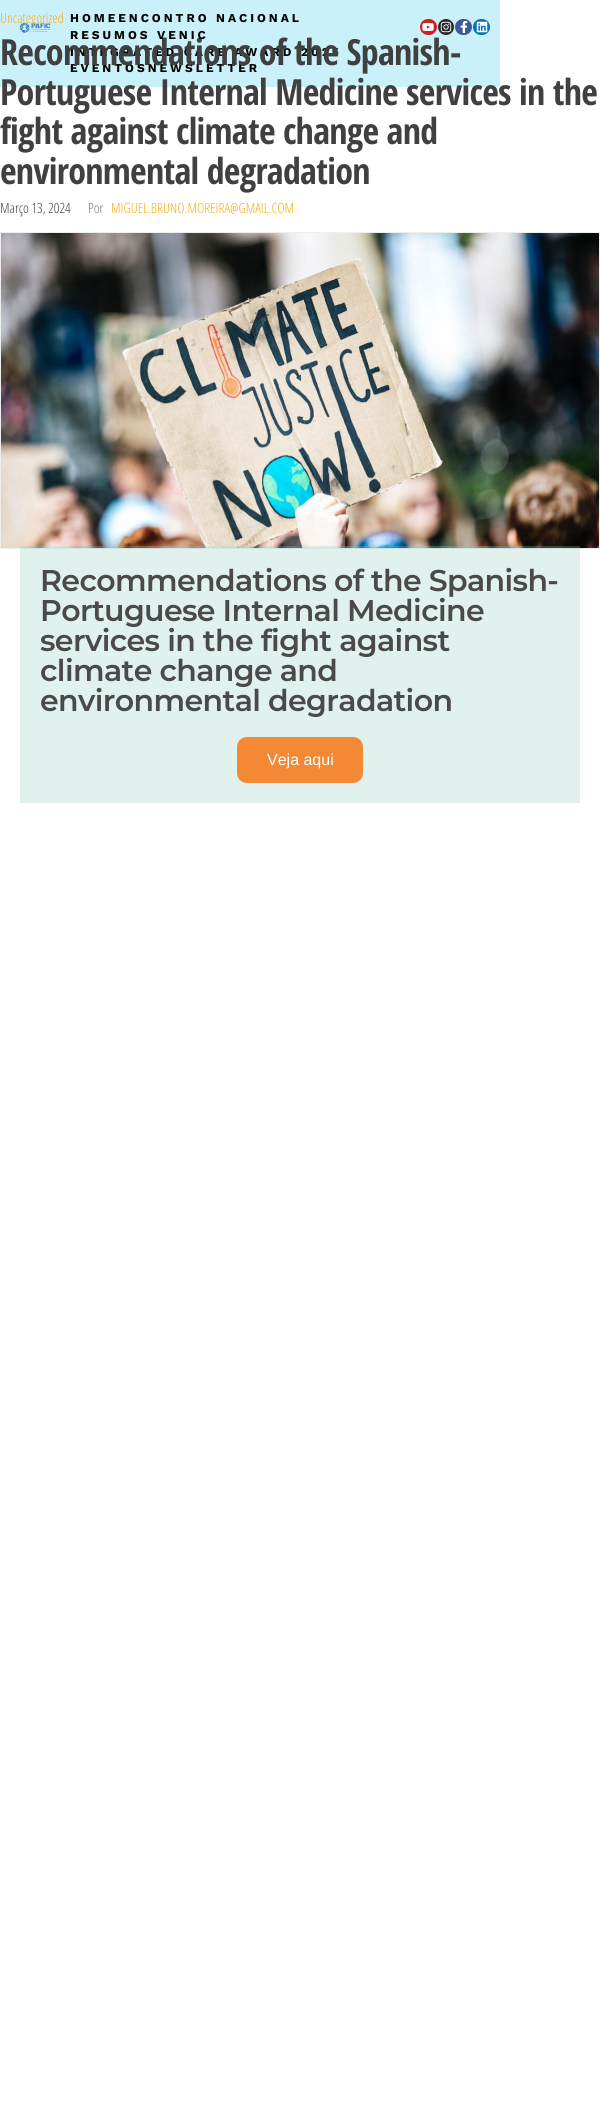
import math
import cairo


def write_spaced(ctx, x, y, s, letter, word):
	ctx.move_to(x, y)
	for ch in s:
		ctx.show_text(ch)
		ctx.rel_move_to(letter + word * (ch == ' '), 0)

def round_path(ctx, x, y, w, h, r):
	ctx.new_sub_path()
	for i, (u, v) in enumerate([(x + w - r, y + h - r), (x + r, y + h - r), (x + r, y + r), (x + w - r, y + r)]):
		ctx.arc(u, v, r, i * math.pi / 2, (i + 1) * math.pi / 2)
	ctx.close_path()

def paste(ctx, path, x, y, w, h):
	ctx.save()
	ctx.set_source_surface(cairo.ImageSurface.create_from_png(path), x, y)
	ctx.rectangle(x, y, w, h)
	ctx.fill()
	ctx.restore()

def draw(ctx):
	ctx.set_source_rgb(1, 1, 1)
	ctx.paint()
	ctx.set_source_rgb(0.792, 0.941, 0.98)
	ctx.rectangle(0, 0, 500, 87)
	ctx.fill()
	paste(ctx, 'media/2.png', 19, 22, 32, 11)
	ctx.select_font_face('Open Sans Condensed Light')
	ctx.set_font_size(14)
	ctx.set_source_rgb(1, 0.667, 0.047)
	ctx.move_to(0, 23)
	ctx.show_text('Uncategorized')
	ctx.select_font_face('Work Sans', cairo.FONT_SLANT_NORMAL, cairo.FONT_WEIGHT_BOLD)
	ctx.set_font_size(12)
	ctx.set_source_rgb(0, 0, 0)
	write_spaced(ctx, 70, 56, 'INTEGRATED CARE AWARD 2025', 3, 0)
	write_spaced(ctx, 70, 72, 'EVENTOSNEWSLETTER', 3, 0)
	ctx.select_font_face('Open Sans Condensed', cairo.FONT_SLANT_NORMAL, cairo.FONT_WEIGHT_BOLD)
	ctx.set_font_size(36)
	ctx.set_source_rgb(0.251, 0.251, 0.251)
	for x, y, s in [
		(0, 65, 'Recommendations of the Spanish-'),
		(0, 105, 'Portuguese Internal Medicine services in the'),
		(0, 144, 'fight against climate change and'),
		(0, 184, 'environmental degradation'),
	]:
		write_spaced(ctx, x, y, s, -0.7, 0)
	ctx.select_font_face('Open Sans Condensed Light')
	ctx.set_font_size(14)
	ctx.move_to(0, 213)
	ctx.show_text('Março 13, 2024')
	ctx.set_source_rgb(0.475, 0.475, 0.475)
	ctx.move_to(88, 213)
	ctx.show_text('Por')
	ctx.set_source_rgb(1, 0.667, 0.047)
	ctx.move_to(111, 213)
	ctx.show_text('MIGUEL.BRUNO.MOREIRA@GMAIL.COM')
	ctx.rectangle(0.5, 232.5, 599, 316)
	ctx.set_source_rgb(0.933, 0.933, 0.933)
	ctx.set_line_width(1)
	ctx.stroke()
	paste(ctx, 'media/1.png', 1, 233, 598, 316)
	ctx.set_source_rgba(0.569, 0.8, 0.761, 0.28)
	ctx.rectangle(20, 546, 560, 257)
	ctx.fill()
	ctx.select_font_face('Montserrat SemiBold')
	ctx.set_font_size(30)
	ctx.set_source_rgb(0.29, 0.29, 0.29)
	for x, y, s in [
		(40, 591, 'Recommendations of the Spanish-'),
		(40, 621, 'Portuguese Internal Medicine'),
		(40, 651, 'services in the fight against'),
		(40, 681, 'climate change and'),
		(40, 711, 'environmental degradation'),
	]:
		write_spaced(ctx, x, y, s, -0.6, 0)
	ctx.set_source_rgb(0.953, 0.533, 0.208)
	round_path(ctx, 237, 737, 126, 46, 10)
	ctx.fill()
	ctx.select_font_face('Liberation Sans')
	ctx.set_font_size(16)
	ctx.set_source_rgb(1, 1, 1)
	ctx.move_to(267, 765)
	ctx.show_text('Veja aqui')
	ctx.select_font_face('Work Sans', cairo.FONT_SLANT_NORMAL, cairo.FONT_WEIGHT_BOLD)
	ctx.set_font_size(12)
	ctx.set_source_rgb(0, 0, 0)
	write_spaced(ctx, 70, 22, 'HOMEENCONTRO NACIONAL', 3, 0)
	write_spaced(ctx, 70, 39, 'RESUMOS VENIC', 3, 0)
	ctx.set_source_rgb(0.804, 0.125, 0.122)
	round_path(ctx, 420, 19, 17, 16, 8)
	ctx.fill()
	paste(ctx, 'media/3.png', 422, 23, 12, 8)
	ctx.set_source_rgb(0.149, 0.149, 0.149)
	ctx.arc(446, 27, 8, 0, 2 * math.pi)
	ctx.fill()
	paste(ctx, 'media/4.png', 440, 21, 12, 12)
	ctx.set_source_rgb(0.231, 0.349, 0.596)
	round_path(ctx, 455, 19, 17, 16, 8)
	ctx.fill()
	paste(ctx, 'media/5.png', 460, 21, 8, 12)
	ctx.set_source_rgb(0, 0.467, 0.71)
	round_path(ctx, 473, 19, 17, 16, 8)
	ctx.fill()
	paste(ctx, 'media/6.png', 476, 21, 12, 12)


surface = cairo.ImageSurface(cairo.FORMAT_RGB24, 600, 2121)
ctx = cairo.Context(surface)
options = cairo.FontOptions()
options.set_hint_metrics(cairo.HINT_METRICS_OFF)
options.set_hint_style(cairo.HINT_STYLE_NONE)
ctx.set_font_options(options)
ctx.set_miter_limit(4)
draw(ctx)
surface.write_to_png('image.png')
